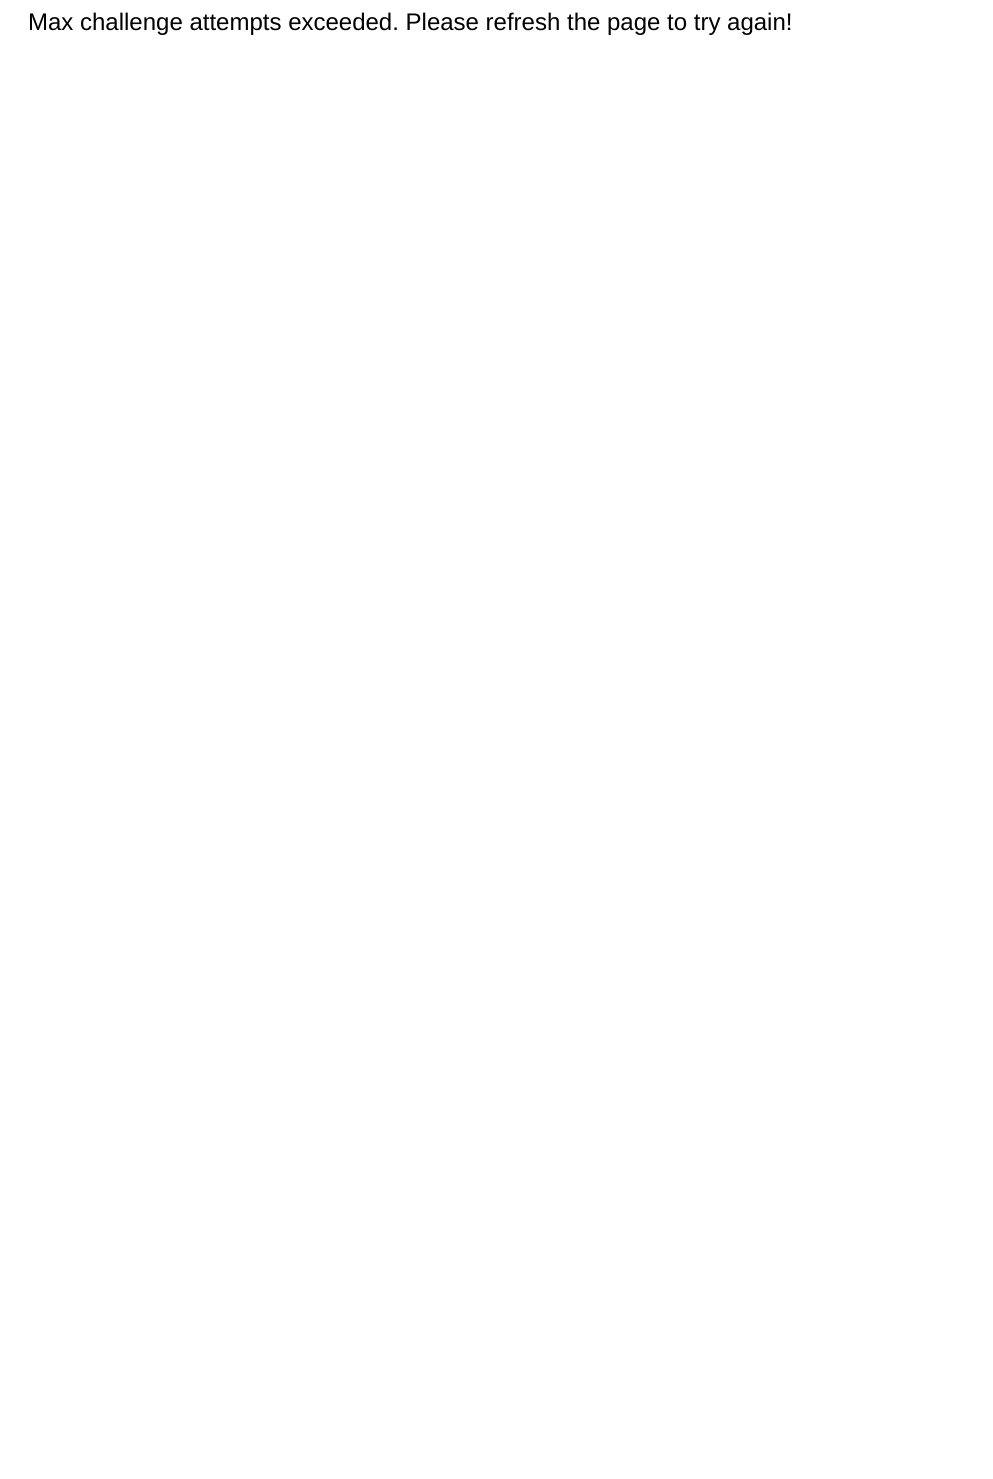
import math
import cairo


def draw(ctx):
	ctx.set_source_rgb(1, 1, 1)
	ctx.paint()
	ctx.select_font_face('Liberation Sans')
	ctx.set_font_size(24)
	ctx.set_source_rgb(0, 0, 0)
	ctx.move_to(28, 30)
	ctx.show_text('Max challenge attempts exceeded. Please refresh the page to try again!')


surface = cairo.ImageSurface(cairo.FORMAT_RGB24, 993, 1479)
ctx = cairo.Context(surface)
options = cairo.FontOptions()
options.set_hint_metrics(cairo.HINT_METRICS_OFF)
options.set_hint_style(cairo.HINT_STYLE_NONE)
ctx.set_font_options(options)
ctx.set_miter_limit(4)
draw(ctx)
surface.write_to_png('image.png')
